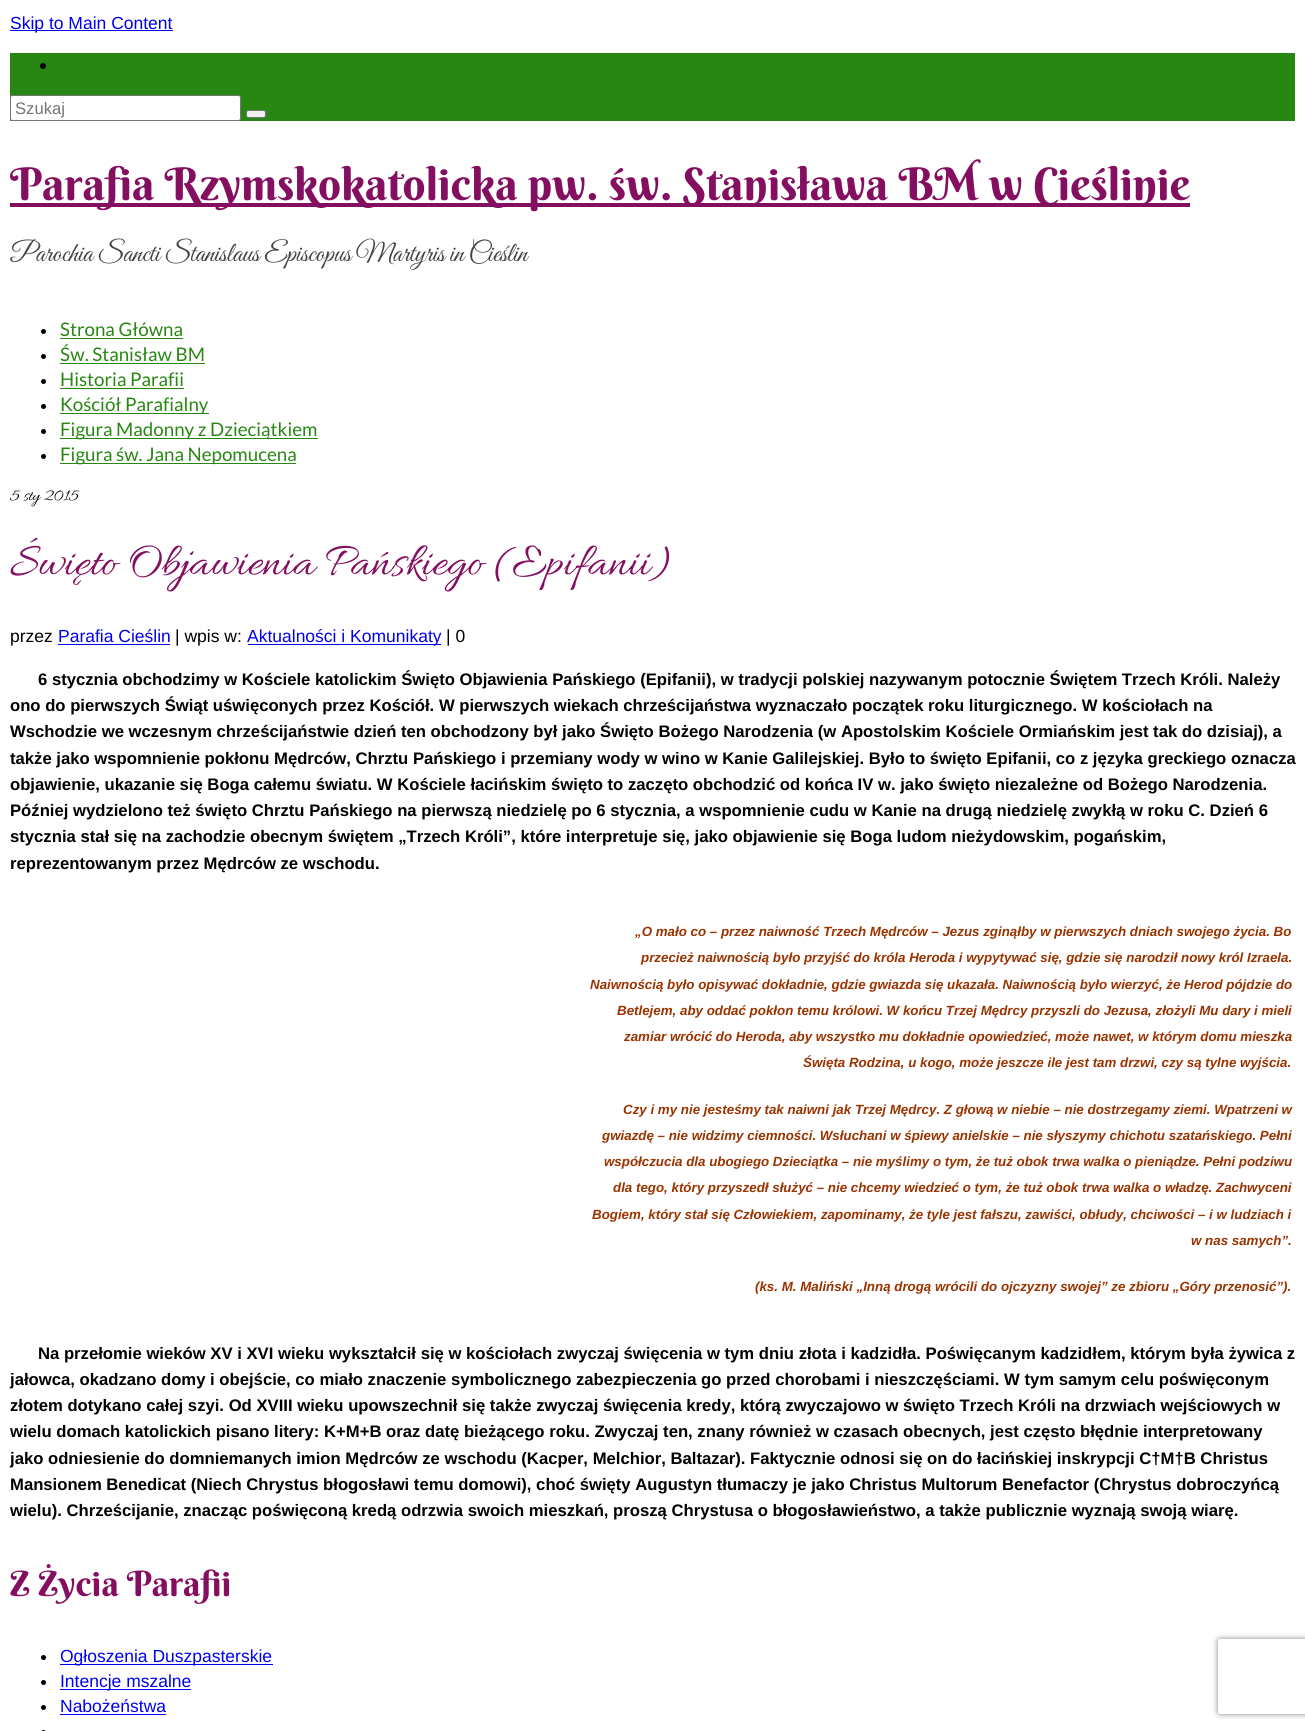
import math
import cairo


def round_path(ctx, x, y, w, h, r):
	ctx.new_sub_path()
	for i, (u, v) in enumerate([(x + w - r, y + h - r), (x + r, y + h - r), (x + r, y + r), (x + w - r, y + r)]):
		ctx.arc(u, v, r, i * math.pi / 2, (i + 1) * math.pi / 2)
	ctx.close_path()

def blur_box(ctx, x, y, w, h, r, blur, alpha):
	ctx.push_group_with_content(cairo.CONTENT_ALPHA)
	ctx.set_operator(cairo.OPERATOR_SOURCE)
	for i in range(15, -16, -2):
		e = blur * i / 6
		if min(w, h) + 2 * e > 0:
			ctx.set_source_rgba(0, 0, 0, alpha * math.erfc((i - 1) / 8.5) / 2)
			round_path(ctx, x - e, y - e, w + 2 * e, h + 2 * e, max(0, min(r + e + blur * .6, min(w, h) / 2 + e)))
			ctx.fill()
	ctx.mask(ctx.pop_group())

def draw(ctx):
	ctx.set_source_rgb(1, 1, 1)
	ctx.paint()
	ctx.set_source_rgb(0, 0, 0.933)
	ctx.rectangle(10, 30, 163, 1)
	ctx.fill()
	ctx.select_font_face('Liberation Sans')
	ctx.set_font_size(17.5)
	ctx.move_to(10, 29)
	ctx.show_text('Skip to Main Content')
	ctx.set_source_rgb(0.157, 0.529, 0.071)
	ctx.rectangle(10, 53, 1285, 68)
	ctx.fill()
	ctx.set_source_rgb(0, 0, 0)
	ctx.arc(43, 66, 3, 0, 2 * math.pi)
	ctx.fill()
	ctx.set_source_rgb(1, 1, 1)
	round_path(ctx, 10.5, 95.5, 230, 25, 2)
	ctx.fill_preserve()
	ctx.set_source_rgb(0.463, 0.463, 0.463)
	ctx.set_line_width(1)
	ctx.stroke()
	ctx.set_font_size(16.67)
	ctx.set_source_rgb(0.459, 0.459, 0.459)
	ctx.move_to(15, 114)
	ctx.show_text('Szukaj')
	ctx.set_source_rgb(0.937, 0.937, 0.937)
	round_path(ctx, 246.5, 110.5, 19, 7, 2)
	ctx.fill_preserve()
	ctx.set_source_rgb(0.463, 0.463, 0.463)
	ctx.stroke()
	ctx.set_source_rgb(0.518, 0.059, 0.38)
	ctx.rectangle(10, 203, 1180, 4)
	ctx.fill()
	ctx.select_font_face('Berkshire Swash')
	ctx.set_font_size(45)
	ctx.move_to(10, 200)
	ctx.show_text('Parafia Rzymskokatolicka pw. św. Stanisława BM w Cieślinie')
	ctx.select_font_face('Great Vibes')
	ctx.set_font_size(27.5)
	ctx.set_source_rgb(0.267, 0.267, 0.267)
	ctx.move_to(10, 261)
	ctx.show_text('Parochia Sancti Stanislaus Episcopus Martyris in Cieślin')
	ctx.set_source_rgb(0, 0, 0)
	ctx.new_path()
	ctx.arc(43.5, 331.5, 2.5, 0, 2 * math.pi)
	ctx.fill()
	ctx.select_font_face('Lato')
	ctx.set_font_size(18.75)
	ctx.set_source_rgb(0.157, 0.529, 0.071)
	ctx.move_to(60, 336)
	ctx.show_text('Strona Główna')
	ctx.rectangle(60, 338, 123, 1)
	ctx.fill()
	ctx.set_source_rgb(0, 0, 0)
	ctx.arc(43.5, 356.5, 2.5, 0, 2 * math.pi)
	ctx.fill()
	ctx.set_source_rgb(0.157, 0.529, 0.071)
	ctx.move_to(60, 361)
	ctx.show_text('Św. Stanisław BM')
	ctx.rectangle(60, 363, 145, 1)
	ctx.fill()
	ctx.set_source_rgb(0, 0, 0)
	ctx.arc(43.5, 381.5, 2.5, 0, 2 * math.pi)
	ctx.fill()
	ctx.set_source_rgb(0.157, 0.529, 0.071)
	ctx.move_to(60, 386)
	ctx.show_text('Historia Parafii')
	ctx.rectangle(60, 388, 124, 1)
	ctx.fill()
	ctx.set_source_rgb(0, 0, 0)
	ctx.arc(43.5, 406.5, 2.5, 0, 2 * math.pi)
	ctx.fill()
	ctx.set_source_rgb(0.157, 0.529, 0.071)
	ctx.rectangle(60, 413, 149, 1)
	ctx.fill()
	ctx.move_to(60, 411)
	ctx.show_text('Kościół Parafialny')
	ctx.set_source_rgb(0, 0, 0)
	ctx.new_path()
	ctx.arc(43.5, 431.5, 2.5, 0, 2 * math.pi)
	ctx.fill()
	ctx.set_source_rgb(0.157, 0.529, 0.071)
	ctx.rectangle(60, 438, 258, 1)
	ctx.fill()
	ctx.move_to(60, 436)
	ctx.show_text('Figura Madonny z Dzieciątkiem')
	ctx.set_source_rgb(0, 0, 0)
	ctx.new_path()
	ctx.arc(43.5, 456.5, 2.5, 0, 2 * math.pi)
	ctx.fill()
	ctx.set_source_rgb(0.157, 0.529, 0.071)
	ctx.rectangle(60, 463, 236, 1)
	ctx.fill()
	ctx.move_to(60, 461)
	ctx.show_text('Figura św. Jana Nepomucena')
	ctx.select_font_face('Allura')
	ctx.set_font_size(17.5)
	ctx.set_source_rgb(0, 0, 0)
	ctx.move_to(10, 500)
	ctx.show_text('5 sty 2015')
	ctx.set_font_size(47.5)
	ctx.set_source_rgb(0.518, 0.059, 0.38)
	ctx.move_to(10, 574)
	ctx.show_text('Święto Objawienia Pańskiego (Epifanii)')
	ctx.select_font_face('Liberation Sans')
	ctx.set_font_size(17.5)
	ctx.set_source_rgb(0, 0, 0)
	ctx.move_to(10, 642)
	ctx.show_text('przez')
	ctx.set_source_rgb(0, 0, 0.933)
	ctx.rectangle(58, 644, 112, 1)
	ctx.fill()
	ctx.move_to(58, 642)
	ctx.show_text('Parafia Cieślin')
	ctx.set_source_rgb(0, 0, 0)
	ctx.move_to(175, 642)
	ctx.show_text('| wpis w:')
	ctx.set_source_rgb(0, 0, 0.933)
	ctx.rectangle(248, 644, 193, 1)
	ctx.fill()
	ctx.move_to(247, 642)
	ctx.show_text('Aktualności i Komunikaty')
	ctx.set_source_rgb(0, 0, 0)
	ctx.move_to(446, 642)
	ctx.show_text('| 0')
	ctx.select_font_face('Liberation Sans', cairo.FONT_SLANT_NORMAL, cairo.FONT_WEIGHT_BOLD)
	ctx.set_font_size(16.67)
	for x, y, s in [
		(38, 685, '6 stycznia obchodzimy w Kościele katolickim Święto Objawienia Pańskiego (Epifanii), w tradycji polskiej nazywanym potocznie Świętem Trzech Króli. Należy'),
		(10, 711, 'ono do pierwszych Świąt uświęconych przez Kościół. W pierwszych wiekach chrześcijaństwa wyznaczało początek roku liturgicznego. W kościołach na'),
		(10, 737, 'Wschodzie we wczesnym chrześcijaństwie dzień ten obchodzony był jako Święto Bożego Narodzenia (w Apostolskim Kościele Ormiańskim jest tak do dzisiaj), a'),
		(10, 764, 'także jako wspomnienie pokłonu Mędrców, Chrztu Pańskiego i przemiany wody w wino w Kanie Galilejskiej. Było to święto Epifanii, co z języka greckiego oznacza'),
		(10, 790, 'objawienie, ukazanie się Boga całemu światu. W Kościele łacińskim święto to zaczęto obchodzić od końca IV w. jako święto niezależne od Bożego Narodzenia.'),
		(10, 816, 'Później wydzielono też święto Chrztu Pańskiego na pierwszą niedzielę po 6 stycznia, a wspomnienie cudu w Kanie na drugą niedzielę zwykłą w roku C. Dzień 6'),
		(10, 842, 'stycznia stał się na zachodzie obecnym świętem „Trzech Króli”, które interpretuje się, jako objawienie się Boga ludom nieżydowskim, pogańskim,'),
		(10, 869, 'reprezentowanym przez Mędrców ze wschodu.'),
	]:
		ctx.move_to(x, y)
		ctx.show_text(s)
	ctx.select_font_face('Liberation Sans', cairo.FONT_SLANT_ITALIC, cairo.FONT_WEIGHT_BOLD)
	ctx.set_font_size(13.33)
	ctx.set_source_rgb(0.6, 0.2, 0)
	for x, y, s in [
		(635, 936, '„O mało co – przez naiwność Trzech Mędrców – Jezus zginąłby w pierwszych dniach swojego życia. Bo'),
		(641, 962, 'przecież naiwnością było przyjść do króla Heroda i wypytywać się, gdzie się narodził nowy król Izraela.'),
		(590, 989, 'Naiwnością było opisywać dokładnie, gdzie gwiazda się ukazała. Naiwnością było wierzyć, że Herod pójdzie do'),
		(617, 1015, 'Betlejem, aby oddać pokłon temu królowi. W końcu Trzej Mędrcy przyszli do Jezusa, złożyli Mu dary i mieli'),
		(624, 1041, 'zamiar wrócić do Heroda, aby wszystko mu dokładnie opowiedzieć, może nawet, w którym domu mieszka'),
		(803, 1067, 'Święta Rodzina, u kogo, może jeszcze ile jest tam drzwi, czy są tylne wyjścia.'),
		(623, 1114, 'Czy i my nie jesteśmy tak naiwni jak Trzej Mędrcy. Z głową w niebie – nie dostrzegamy ziemi. Wpatrzeni w'),
		(602, 1140, 'gwiazdę – nie widzimy ciemności. Wsłuchani w śpiewy anielskie – nie słyszymy chichotu szatańskiego. Pełni'),
		(604, 1166, 'współczucia dla ubogiego Dzieciątka – nie myślimy o tym, że tuż obok trwa walka o pieniądze. Pełni podziwu'),
		(613, 1192, 'dla tego, który przyszedł służyć – nie chcemy wiedzieć o tym, że tuż obok trwa walka o władzę. Zachwyceni'),
		(592, 1219, 'Bogiem, który stał się Człowiekiem, zapominamy, że tyle jest fałszu, zawiści, obłudy, chciwości – i w ludziach i'),
		(1191, 1245, 'w nas samych”.'),
		(755, 1291, '(ks. M. Maliński „Inną drogą wrócili do ojczyzny swojej” ze zbioru „Góry przenosić”).'),
	]:
		ctx.move_to(x, y)
		ctx.show_text(s)
	ctx.select_font_face('Liberation Sans', cairo.FONT_SLANT_NORMAL, cairo.FONT_WEIGHT_BOLD)
	ctx.set_font_size(16.67)
	ctx.set_source_rgb(0, 0, 0)
	for x, y, s in [
		(38, 1359, 'Na przełomie wieków XV i XVI wieku wykształcił się w kościołach zwyczaj święcenia w tym dniu złota i kadzidła. Poświęcanym kadzidłem, którym była żywica z'),
		(10, 1385, 'jałowca, okadzano domy i obejście, co miało znaczenie symbolicznego zabezpieczenia go przed chorobami i nieszczęściami. W tym samym celu poświęconym'),
		(10, 1411, 'złotem dotykano całej szyi. Od XVIII wieku upowszechnił się także zwyczaj święcenia kredy, którą zwyczajowo w święto Trzech Króli na drzwiach wejściowych w'),
		(10, 1437, 'wielu domach katolickich pisano litery: K+M+B oraz datę bieżącego roku. Zwyczaj ten, znany również w czasach obecnych, jest często błędnie interpretowany'),
		(10, 1464, 'jako odniesienie do domniemanych imion Mędrców ze wschodu (Kacper, Melchior, Baltazar). Faktycznie odnosi się on do łacińskiej inskrypcji C†M†B Christus'),
		(10, 1490, 'Mansionem Benedicat (Niech Chrystus błogosławi temu domowi), choć święty Augustyn tłumaczy je jako Christus Multorum Benefactor (Chrystus dobroczyńcą'),
		(10, 1516, 'wielu). Chrześcijanie, znacząc poświęconą kredą odrzwia swoich mieszkań, proszą Chrystusa o błogosławieństwo, a także publicznie wyznają swoją wiarę.'),
	]:
		ctx.move_to(x, y)
		ctx.show_text(s)
	ctx.select_font_face('Berkshire Swash')
	ctx.set_font_size(35)
	ctx.set_source_rgb(0.518, 0.059, 0.38)
	ctx.move_to(10, 1596)
	ctx.show_text('Z Życia Parafii')
	ctx.set_source_rgb(0, 0, 0)
	ctx.new_path()
	ctx.arc(43.5, 1657.5, 2.5, 0, 2 * math.pi)
	ctx.fill()
	ctx.set_source_rgb(0, 0, 0.933)
	ctx.rectangle(60, 1664, 213, 1)
	ctx.fill()
	ctx.select_font_face('Liberation Sans')
	ctx.set_font_size(17.5)
	ctx.move_to(60, 1662)
	ctx.show_text('Ogłoszenia Duszpasterskie')
	ctx.set_source_rgb(0, 0, 0)
	ctx.new_path()
	ctx.arc(43.5, 1682.5, 2.5, 0, 2 * math.pi)
	ctx.fill()
	ctx.set_source_rgb(0, 0, 0.933)
	ctx.rectangle(60, 1689, 131, 1)
	ctx.fill()
	ctx.move_to(60, 1687)
	ctx.show_text('Intencje mszalne')
	ctx.set_source_rgb(0, 0, 0)
	ctx.new_path()
	ctx.arc(43.5, 1707.5, 2.5, 0, 2 * math.pi)
	ctx.fill()
	ctx.set_source_rgb(0, 0, 0.933)
	ctx.move_to(60, 1712)
	ctx.show_text('Nabożeństwa')
	ctx.rectangle(60, 1714, 106, 1)
	ctx.fill()
	ctx.set_source_rgb(0, 0, 0)
	round_path(ctx, 41, 1730, 5, 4, 2.5)
	ctx.fill()
	ctx.save()
	ctx.set_fill_rule(cairo.FILL_RULE_EVEN_ODD)
	ctx.new_path()
	ctx.move_to(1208, 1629)
	ctx.line_to(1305, 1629)
	ctx.line_to(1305, 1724)
	ctx.line_to(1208, 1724)
	ctx.close_path()
	ctx.move_to(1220.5, 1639)
	ctx.line_to(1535.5, 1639)
	ctx.curve_to(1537, 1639, 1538, 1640, 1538, 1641.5)
	ctx.line_to(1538, 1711.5)
	ctx.curve_to(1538, 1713, 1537, 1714, 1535.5, 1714)
	ctx.line_to(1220.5, 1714)
	ctx.curve_to(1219, 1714, 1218, 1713, 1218, 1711.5)
	ctx.line_to(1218, 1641.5)
	ctx.curve_to(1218, 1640, 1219, 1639, 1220.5, 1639)
	ctx.close_path()
	ctx.clip()
	ctx.set_source_rgb(0.502, 0.502, 0.502)
	blur_box(ctx, 1218, 1639, 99, 75, 2.5, 3, 1)
	ctx.restore()


surface = cairo.ImageSurface(cairo.FORMAT_RGB24, 1305, 1731)
ctx = cairo.Context(surface)
options = cairo.FontOptions()
options.set_hint_metrics(cairo.HINT_METRICS_OFF)
options.set_hint_style(cairo.HINT_STYLE_NONE)
ctx.set_font_options(options)
ctx.set_miter_limit(4)
draw(ctx)
surface.write_to_png('image.png')
